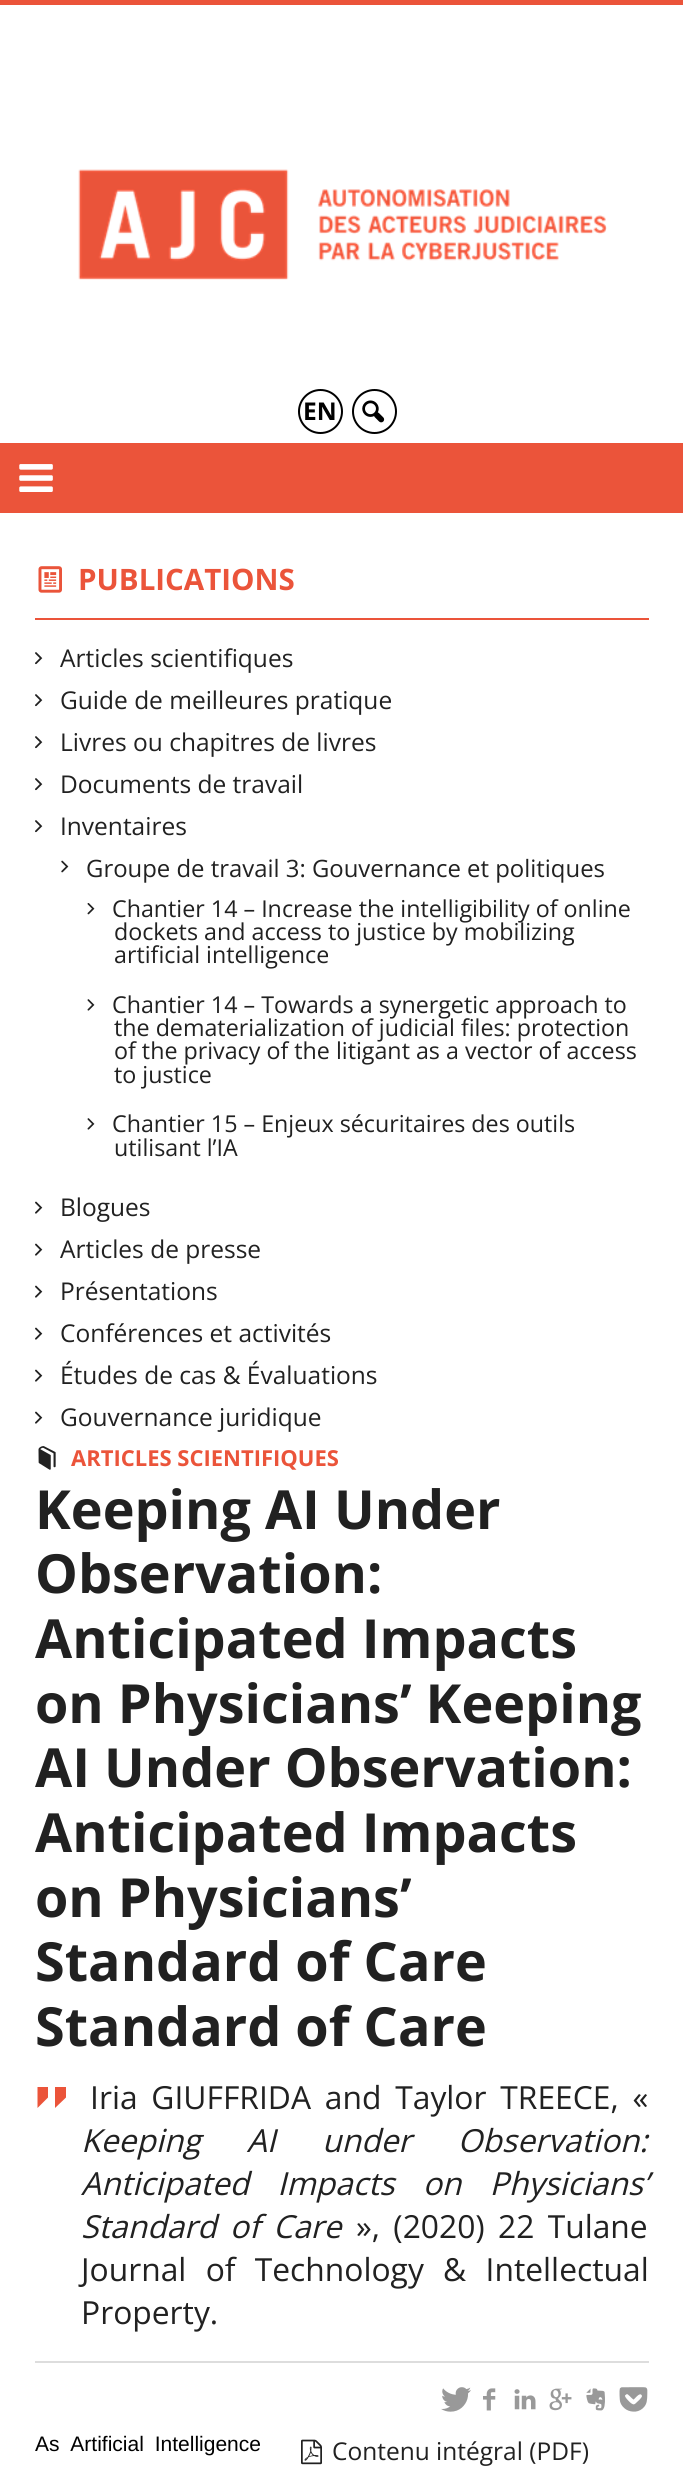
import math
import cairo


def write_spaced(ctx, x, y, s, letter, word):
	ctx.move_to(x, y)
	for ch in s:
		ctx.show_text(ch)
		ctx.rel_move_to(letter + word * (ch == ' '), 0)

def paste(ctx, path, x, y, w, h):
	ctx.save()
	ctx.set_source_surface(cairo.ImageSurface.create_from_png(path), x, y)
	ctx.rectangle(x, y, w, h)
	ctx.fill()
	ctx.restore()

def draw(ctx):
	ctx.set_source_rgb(1, 1, 1)
	ctx.paint()
	ctx.set_source_rgb(0.918, 0.329, 0.227)
	ctx.rectangle(0, 0, 683, 5)
	ctx.fill()
	paste(ctx, 'media/1.png', 78, 169, 529, 111)
	ctx.arc(320.5, 411.5, 21.5, 0, 2 * math.pi)
	ctx.set_source_rgb(0, 0, 0)
	ctx.stroke()
	ctx.select_font_face('Open Sans', cairo.FONT_SLANT_NORMAL, cairo.FONT_WEIGHT_BOLD)
	ctx.set_font_size(24.5)
	ctx.move_to(303, 420)
	ctx.show_text('EN')
	ctx.new_path()
	ctx.arc(374.5, 411.5, 21.5, 0, 2 * math.pi)
	ctx.stroke()
	paste(ctx, 'media/2.png', 362, 400, 23, 23)
	ctx.set_source_rgb(0.918, 0.329, 0.227)
	ctx.rectangle(0, 443, 683, 70)
	ctx.fill()
	paste(ctx, 'media/3.png', 19, 464, 34, 28)
	ctx.rectangle(35, 618, 614, 2)
	ctx.fill()
	paste(ctx, 'media/4.png', 38, 566, 24, 27)
	ctx.set_font_size(29.5)
	ctx.move_to(78, 590)
	ctx.show_text('PUBLICATIONS')
	paste(ctx, 'media/5.png', 35, 652, 8, 13)
	ctx.select_font_face('Open Sans')
	ctx.set_font_size(24.5)
	ctx.set_source_rgb(0.129, 0.129, 0.129)
	ctx.move_to(60, 667)
	ctx.show_text('Articles scientifiques')
	paste(ctx, 'media/5.png', 35, 694, 8, 13)
	ctx.move_to(60, 709)
	ctx.show_text('Guide de meilleures pratique')
	paste(ctx, 'media/5.png', 35, 736, 8, 13)
	ctx.move_to(60, 751)
	ctx.show_text('Livres ou chapitres de livres')
	paste(ctx, 'media/5.png', 35, 778, 8, 13)
	ctx.move_to(60, 793)
	ctx.show_text('Documents de travail')
	paste(ctx, 'media/5.png', 35, 820, 8, 13)
	ctx.move_to(60, 835)
	ctx.show_text('Inventaires')
	paste(ctx, 'media/6.png', 61, 860, 8, 13)
	ctx.set_font_size(23.9)
	ctx.move_to(86, 877)
	ctx.show_text('Groupe de travail 3: Gouvernance et politiques')
	paste(ctx, 'media/7.png', 87, 903, 8, 12)
	ctx.set_font_size(23.25)
	for x, y, s in [
		(112, 917, 'Chantier 14 – Increase the intelligibility of online'),
		(114, 940, 'dockets and access to justice by mobilizing'),
		(114, 963, 'artificial intelligence'),
	]:
		ctx.move_to(x, y)
		ctx.show_text(s)
	paste(ctx, 'media/8.png', 87, 999, 8, 12)
	for x, y, s in [
		(112, 1013, 'Chantier 14 – Towards a synergetic approach to'),
		(114, 1036, 'the dematerialization of judicial files: protection'),
		(114, 1059, 'of the privacy of the litigant as a vector of access'),
		(114, 1083, 'to justice'),
	]:
		ctx.move_to(x, y)
		ctx.show_text(s)
	paste(ctx, 'media/8.png', 87, 1118, 8, 12)
	ctx.move_to(112, 1132)
	ctx.show_text('Chantier 15 – Enjeux sécuritaires des outils')
	ctx.move_to(114, 1156)
	ctx.show_text('utilisant l’IA')
	paste(ctx, 'media/9.png', 35, 1201, 8, 13)
	ctx.set_font_size(24.5)
	ctx.move_to(60, 1216)
	ctx.show_text('Blogues')
	paste(ctx, 'media/9.png', 35, 1243, 8, 13)
	ctx.move_to(60, 1258)
	ctx.show_text('Articles de presse')
	paste(ctx, 'media/9.png', 35, 1285, 8, 13)
	ctx.move_to(60, 1300)
	ctx.show_text('Présentations')
	paste(ctx, 'media/9.png', 35, 1327, 8, 13)
	ctx.move_to(60, 1342)
	ctx.show_text('Conférences et activités')
	paste(ctx, 'media/9.png', 35, 1369, 8, 13)
	ctx.move_to(60, 1384)
	ctx.show_text('Études de cas & Évaluations')
	paste(ctx, 'media/9.png', 35, 1411, 8, 13)
	ctx.move_to(60, 1426)
	ctx.show_text('Gouvernance juridique')
	paste(ctx, 'media/10.png', 38, 1446, 18, 24)
	ctx.select_font_face('Open Sans', cairo.FONT_SLANT_NORMAL, cairo.FONT_WEIGHT_BOLD)
	ctx.set_font_size(22)
	ctx.set_source_rgb(0.918, 0.329, 0.227)
	ctx.move_to(71, 1466)
	ctx.show_text('ARTICLES SCIENTIFIQUES')
	ctx.set_font_size(53.9)
	ctx.set_source_rgb(0.129, 0.129, 0.129)
	for x, y, s in [
		(35, 1529, 'Keeping AI Under'),
		(35, 1593, 'Observation:'),
		(35, 1658, 'Anticipated Impacts'),
		(35, 1723, 'on Physicians’ Keeping'),
		(35, 1787, 'AI Under Observation:'),
		(35, 1852, 'Anticipated Impacts'),
		(35, 1917, 'on Physicians’'),
		(35, 1981, 'Standard of Care'),
		(35, 2046, 'Standard of Care'),
	]:
		ctx.move_to(x, y)
		ctx.show_text(s)
	ctx.set_source_rgb(0.918, 0.329, 0.227)
	ctx.new_path()
	ctx.move_to(37.5, 2087)
	ctx.line_to(48, 2087)
	ctx.line_to(48, 2097.5)
	ctx.line_to(37.5, 2108)
	ctx.close_path()
	ctx.move_to(55, 2087)
	ctx.line_to(66, 2087)
	ctx.line_to(66, 2097.5)
	ctx.line_to(55, 2108)
	ctx.close_path()
	ctx.fill()
	ctx.select_font_face('Open Sans')
	ctx.set_font_size(31.8)
	ctx.set_source_rgb(0.129, 0.129, 0.129)
	write_spaced(ctx, 90, 2109, 'Iria GIUFFRIDA and Taylor TREECE, «', 0, 5.5)
	ctx.select_font_face('Open Sans', cairo.FONT_SLANT_ITALIC)
	write_spaced(ctx, 81, 2152, 'Keeping AI under Observation:', 0, 38)
	write_spaced(ctx, 81, 2195, 'Anticipated Impacts on Physicians’', 0, 20)
	write_spaced(ctx, 81, 2238, 'Standard of Care', 0, 5)
	ctx.select_font_face('Open Sans')
	write_spaced(ctx, 356, 2238, '», (2020) 22 Tulane', 0, 5)
	write_spaced(ctx, 81, 2281, 'Journal of Technology & Intellectual', 0, 11)
	ctx.move_to(81, 2324)
	ctx.show_text('Property.')
	ctx.set_source_rgb(0.867, 0.867, 0.867)
	ctx.rectangle(35, 2361, 614, 2)
	ctx.fill()
	paste(ctx, 'media/11.png', 441, 2387, 30, 25)
	paste(ctx, 'media/12.png', 483, 2388, 13, 23)
	paste(ctx, 'media/13.png', 514, 2389, 22, 21)
	paste(ctx, 'media/14.png', 549, 2388, 23, 23)
	paste(ctx, 'media/15.png', 586, 2388, 19, 23)
	paste(ctx, 'media/16.png', 619, 2387, 29, 25)
	ctx.select_font_face('Liberation Sans')
	ctx.set_font_size(21)
	ctx.set_source_rgb(0, 0, 0)
	write_spaced(ctx, 35, 2451, 'As Artificial Intelligence', 0, 5)
	paste(ctx, 'media/17.png', 301, 2439, 21, 26)
	ctx.select_font_face('Open Sans')
	ctx.set_font_size(24.5)
	ctx.set_source_rgb(0.129, 0.129, 0.129)
	ctx.move_to(332, 2460)
	ctx.show_text('Contenu intégral (PDF)')


surface = cairo.ImageSurface(cairo.FORMAT_RGB24, 683, 2475)
ctx = cairo.Context(surface)
options = cairo.FontOptions()
options.set_hint_metrics(cairo.HINT_METRICS_OFF)
options.set_hint_style(cairo.HINT_STYLE_NONE)
ctx.set_font_options(options)
ctx.set_miter_limit(4)
draw(ctx)
surface.write_to_png('image.png')
